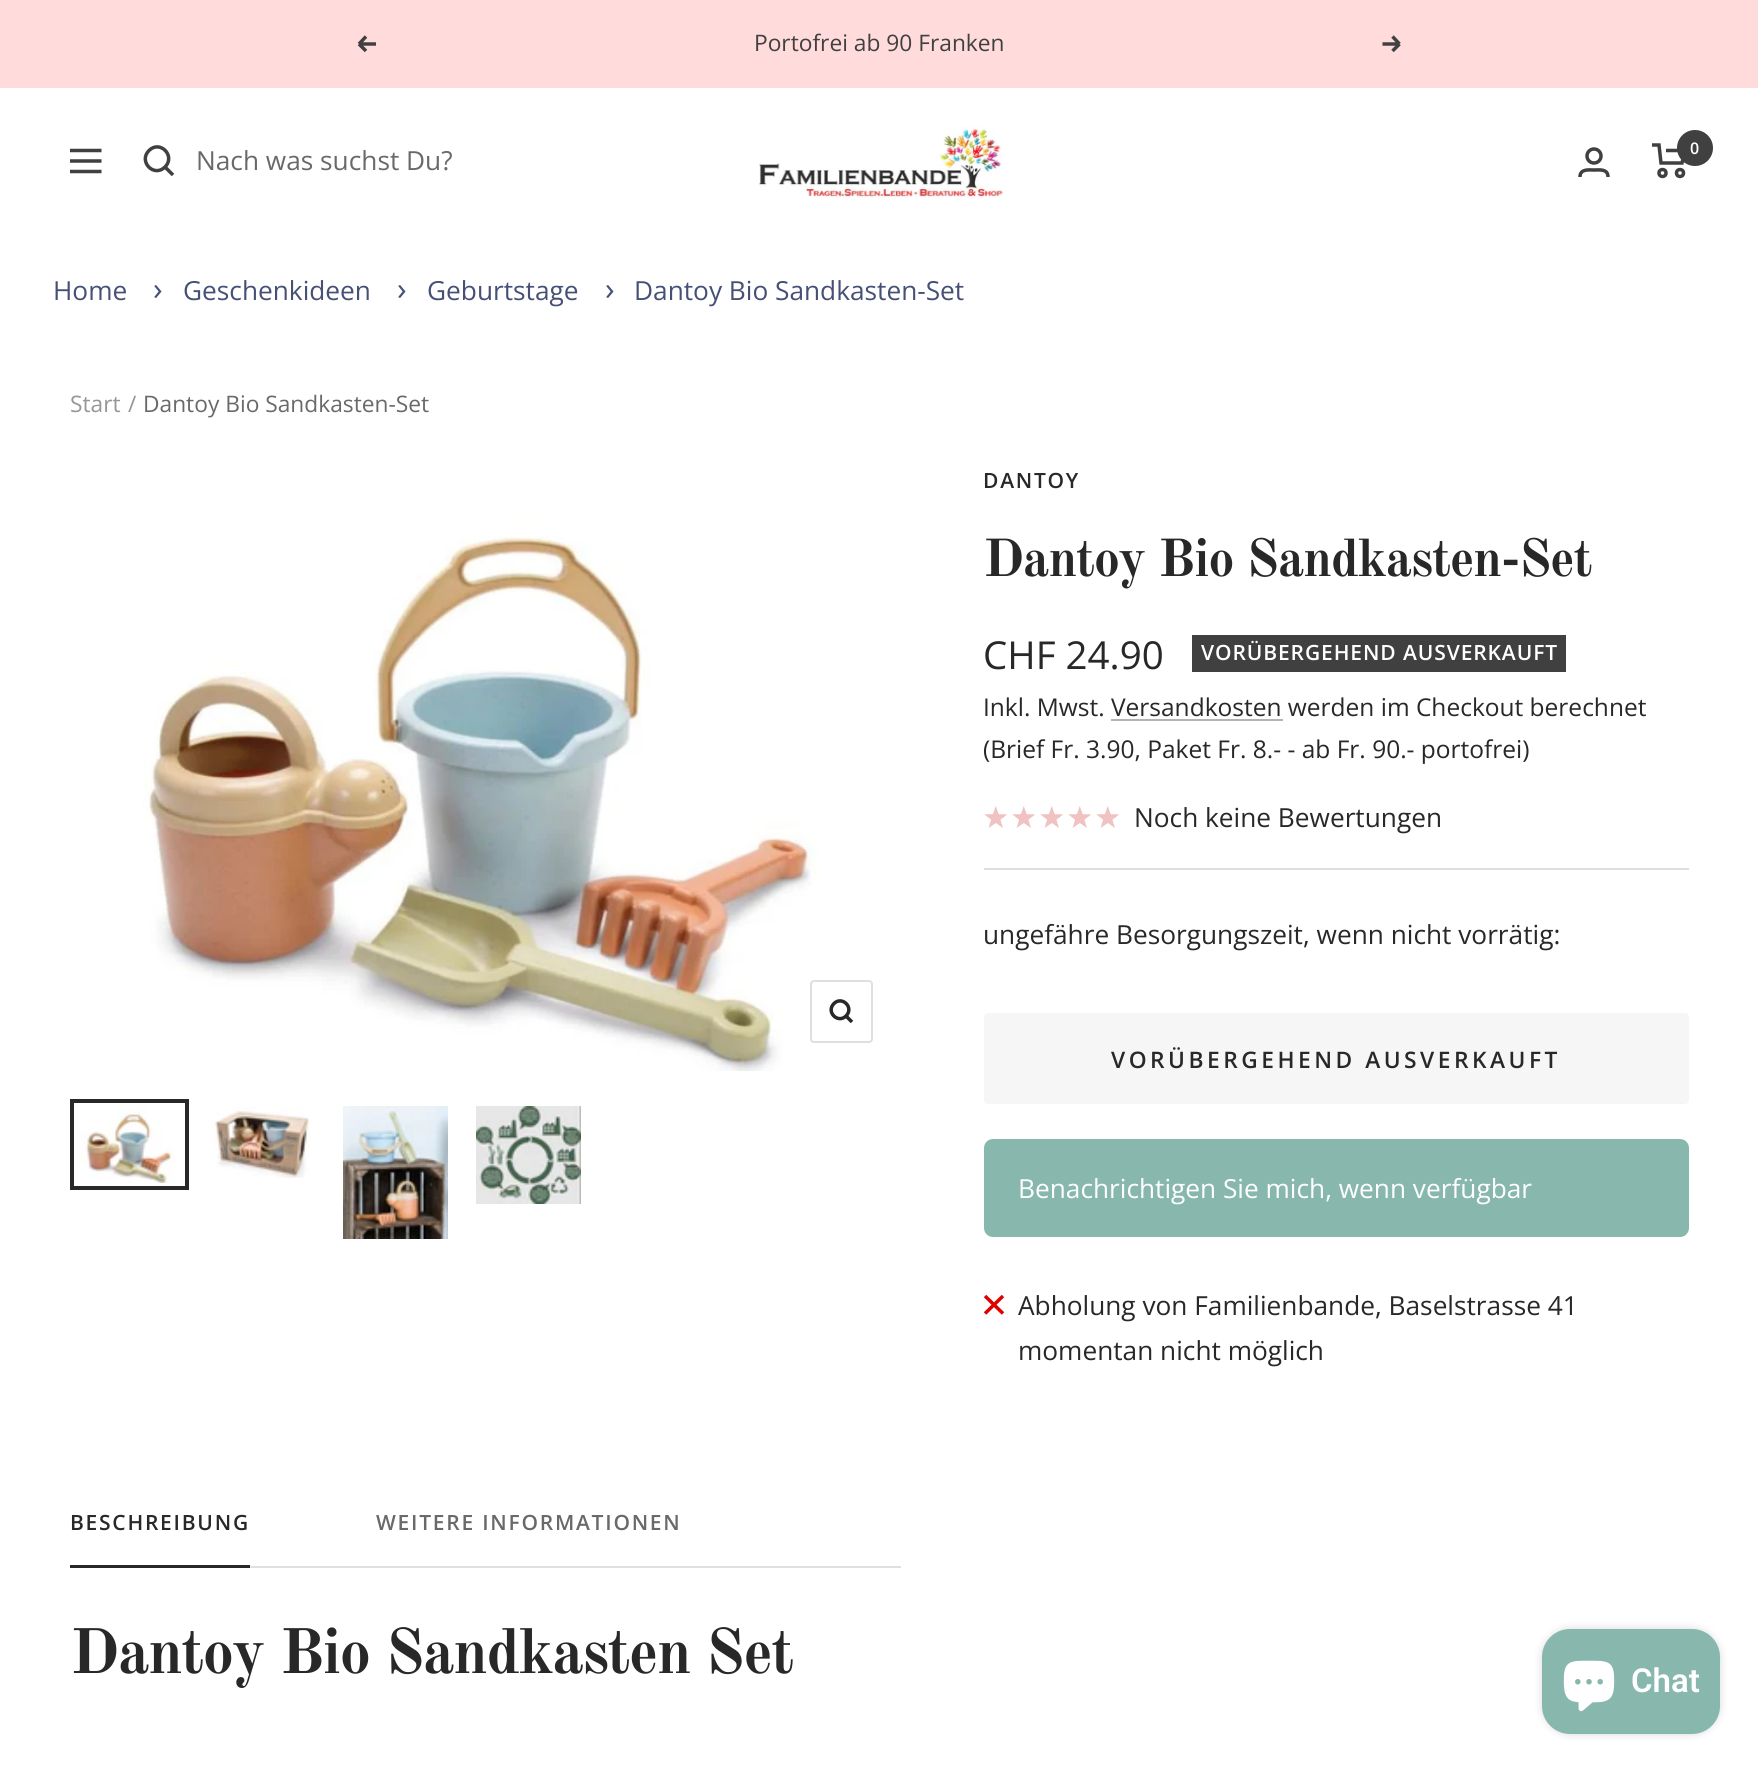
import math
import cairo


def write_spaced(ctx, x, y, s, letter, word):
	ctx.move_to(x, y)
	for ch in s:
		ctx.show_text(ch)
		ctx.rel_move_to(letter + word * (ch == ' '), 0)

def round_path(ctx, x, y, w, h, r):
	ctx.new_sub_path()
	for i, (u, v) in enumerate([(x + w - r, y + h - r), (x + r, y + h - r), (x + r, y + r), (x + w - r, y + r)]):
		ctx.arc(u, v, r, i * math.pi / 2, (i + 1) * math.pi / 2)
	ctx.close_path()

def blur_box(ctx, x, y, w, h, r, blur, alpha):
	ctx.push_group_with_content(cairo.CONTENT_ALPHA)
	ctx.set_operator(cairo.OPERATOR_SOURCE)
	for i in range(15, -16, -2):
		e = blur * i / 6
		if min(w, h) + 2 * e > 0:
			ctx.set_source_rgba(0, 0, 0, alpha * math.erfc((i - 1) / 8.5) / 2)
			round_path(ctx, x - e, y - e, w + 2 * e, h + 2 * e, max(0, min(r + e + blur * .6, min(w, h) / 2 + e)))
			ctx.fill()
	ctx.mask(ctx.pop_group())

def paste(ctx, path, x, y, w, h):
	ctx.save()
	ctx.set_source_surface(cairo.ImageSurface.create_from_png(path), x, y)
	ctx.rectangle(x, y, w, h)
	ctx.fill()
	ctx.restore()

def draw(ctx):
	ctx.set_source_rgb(1, 1, 1)
	ctx.paint()
	ctx.set_source_rgb(1, 0.859, 0.859)
	ctx.rectangle(0, 0, 1758, 88)
	ctx.fill()
	ctx.new_path()
	ctx.move_to(376, 44)
	ctx.line_to(359, 44)
	ctx.move_to(359, 44)
	ctx.line_to(366, 51)
	ctx.move_to(359, 44)
	ctx.line_to(366, 36.5)
	ctx.set_source_rgb(0.251, 0.251, 0.251)
	ctx.set_line_width(3.5)
	ctx.stroke()
	ctx.select_font_face('Open Sans')
	ctx.set_font_size(22.75)
	ctx.move_to(754, 51)
	ctx.show_text('Portofrei ab 90 Franken')
	ctx.new_path()
	ctx.move_to(1382.5, 44)
	ctx.line_to(1399.5, 44)
	ctx.move_to(1399.5, 44)
	ctx.line_to(1392.5, 51)
	ctx.move_to(1399.5, 44)
	ctx.line_to(1392.5, 36.5)
	ctx.stroke()
	paste(ctx, 'media/1.png', 759, 126, 244, 72)
	ctx.arc(1594, 156, 7, 0, 2 * math.pi)
	ctx.stroke()
	ctx.new_path()
	ctx.move_to(1580, 177)
	ctx.curve_to(1580, 168.5, 1589, 170, 1594, 170)
	ctx.curve_to(1599.5, 170, 1608, 168.5, 1608, 177)
	ctx.stroke()
	ctx.new_path()
	ctx.move_to(1652, 145)
	ctx.line_to(1659, 145)
	ctx.line_to(1661, 163)
	ctx.line_to(1682, 163)
	ctx.line_to(1685, 150.5)
	ctx.line_to(1666, 150.5)
	ctx.stroke()
	ctx.arc(1662.5, 173, 3.5, 0, 2 * math.pi)
	ctx.stroke()
	ctx.arc(1680, 173, 3.5, 0, 2 * math.pi)
	ctx.stroke()
	ctx.arc(1695, 148, 18, 0, 2 * math.pi)
	ctx.fill()
	ctx.select_font_face('Open Sans SemiBold')
	ctx.set_font_size(16)
	ctx.set_source_rgb(1, 1, 1)
	ctx.move_to(1690, 154)
	ctx.show_text('0')
	ctx.new_path()
	ctx.move_to(70, 150.5)
	ctx.line_to(101.5, 150.5)
	ctx.move_to(70, 171.5)
	ctx.line_to(101.5, 171.5)
	ctx.close_path()
	ctx.move_to(70, 161)
	ctx.line_to(101.5, 161)
	ctx.close_path()
	ctx.set_source_rgb(0.251, 0.251, 0.251)
	ctx.stroke()
	ctx.new_path()
	ctx.move_to(165, 167)
	ctx.curve_to(176, 156, 160, 139.5, 149, 150.5)
	ctx.curve_to(138, 161.5, 154, 178, 165, 167)
	ctx.close_path()
	ctx.move_to(165, 167)
	ctx.line_to(173, 175)
	ctx.stroke()
	ctx.select_font_face('Open Sans')
	ctx.set_font_size(26.25)
	ctx.set_source_rgb(0.412, 0.412, 0.412)
	ctx.move_to(196, 170)
	ctx.show_text('Nach was suchst Du?')
	ctx.set_source_rgb(0.275, 0.314, 0.463)
	ctx.move_to(53, 300)
	ctx.show_text('Home')
	ctx.set_font_size(32)
	ctx.move_to(153, 300)
	ctx.show_text('›')
	ctx.set_font_size(26.25)
	ctx.move_to(183, 300)
	ctx.show_text('Geschenkideen')
	ctx.set_font_size(32)
	ctx.move_to(397, 300)
	ctx.show_text('›')
	ctx.set_font_size(26.25)
	ctx.move_to(427, 300)
	ctx.show_text('Geburtstage')
	ctx.set_font_size(32)
	ctx.move_to(605, 300)
	ctx.show_text('›')
	ctx.set_font_size(26.25)
	ctx.move_to(634, 300)
	ctx.show_text('Dantoy Bio Sandkasten-Set')
	ctx.set_font_size(22.75)
	ctx.set_source_rgb(0.588, 0.588, 0.588)
	ctx.move_to(70, 412)
	ctx.show_text('Start')
	ctx.move_to(128, 412)
	ctx.show_text('/')
	ctx.set_source_rgb(0.412, 0.412, 0.412)
	ctx.move_to(143, 412)
	ctx.show_text('Dantoy Bio Sandkasten-Set')
	paste(ctx, 'media/2.png', 70, 469, 831, 602)
	round_path(ctx, 811, 981, 61, 61, 3)
	ctx.set_source_rgb(0.875, 0.875, 0.875)
	ctx.set_line_width(2)
	ctx.stroke()
	ctx.new_path()
	ctx.move_to(846, 1016)
	ctx.curve_to(854.5, 1007.5, 842, 995.5, 834, 1003.5)
	ctx.curve_to(825.5, 1012, 838, 1024, 846, 1016)
	ctx.close_path()
	ctx.move_to(846, 1016)
	ctx.line_to(852, 1022)
	ctx.set_source_rgb(0.157, 0.157, 0.157)
	ctx.set_line_width(3.5)
	ctx.stroke()
	paste(ctx, 'media/3.png', 77, 1106, 98, 77)
	ctx.rectangle(72, 1101, 115, 87)
	ctx.set_line_width(4)
	ctx.stroke()
	paste(ctx, 'media/4.png', 210, 1106, 100, 72)
	paste(ctx, 'media/5.png', 343, 1106, 105, 133)
	paste(ctx, 'media/6.png', 476, 1106, 105, 98)
	ctx.set_source_rgb(0.875, 0.875, 0.875)
	ctx.rectangle(984, 868, 705, 2)
	ctx.fill()
	ctx.select_font_face('Open Sans SemiBold')
	ctx.set_font_size(21)
	ctx.set_source_rgb(0.157, 0.157, 0.157)
	write_spaced(ctx, 983, 488, 'DANTOY', 1.75, 0)
	ctx.select_font_face('Old Standard TT', cairo.FONT_SLANT_NORMAL, cairo.FONT_WEIGHT_BOLD)
	ctx.set_font_size(52.5)
	write_spaced(ctx, 983, 576, 'Dantoy Bio Sandkasten-Set', -1.4, 0)
	ctx.select_font_face('Open Sans')
	ctx.set_font_size(38.5)
	ctx.move_to(983, 669)
	ctx.show_text('CHF 24.90')
	ctx.set_source_rgb(0.251, 0.251, 0.251)
	ctx.rectangle(1192, 635, 374, 37)
	ctx.fill()
	ctx.select_font_face('Open Sans SemiBold')
	ctx.set_font_size(21)
	ctx.set_source_rgb(1, 1, 1)
	write_spaced(ctx, 1201, 660, 'VORÜBERGEHEND AUSVERKAUFT', 0.9, 0)
	ctx.select_font_face('Open Sans')
	ctx.set_font_size(24.5)
	ctx.set_source_rgb(0.157, 0.157, 0.157)
	ctx.move_to(983, 716)
	ctx.show_text('Inkl. Mwst. Versandkosten werden im Checkout berechnet')
	ctx.set_source_rgb(0.706, 0.706, 0.706)
	ctx.rectangle(1111, 719, 172, 2)
	ctx.fill()
	ctx.set_source_rgb(0.157, 0.157, 0.157)
	ctx.move_to(983, 758)
	ctx.show_text('(Brief Fr. 3.90, Paket Fr. 8.- - ab Fr. 90.- portofrei)')
	paste(ctx, 'media/7.png', 984, 806, 23, 22)
	paste(ctx, 'media/7.png', 1012, 806, 23, 22)
	paste(ctx, 'media/7.png', 1040, 806, 23, 22)
	paste(ctx, 'media/7.png', 1068, 806, 23, 22)
	paste(ctx, 'media/7.png', 1096, 806, 23, 22)
	ctx.set_font_size(26.25)
	ctx.move_to(1134, 827)
	ctx.show_text('Noch keine Bewertungen')
	ctx.move_to(983, 944)
	ctx.show_text('ungefähre Besorgungszeit, wenn nicht vorrätig:')
	ctx.set_source_rgb(0.961, 0.961, 0.961)
	round_path(ctx, 984, 1013, 705, 91, 4)
	ctx.fill()
	ctx.select_font_face('Open Sans SemiBold')
	ctx.set_font_size(22.75)
	ctx.set_source_rgb(0.157, 0.157, 0.157)
	write_spaced(ctx, 1111, 1068, 'VORÜBERGEHEND AUSVERKAUFT', 3.5, 0)
	ctx.set_source_rgb(0.533, 0.722, 0.678)
	round_path(ctx, 984, 1139, 705, 98, 9)
	ctx.fill()
	ctx.select_font_face('Open Sans')
	ctx.set_font_size(26.25)
	ctx.set_source_rgb(1, 1, 1)
	ctx.move_to(1018, 1198)
	ctx.show_text('Benachrichtigen Sie mich, wenn verfügbar')
	ctx.new_path()
	ctx.move_to(985, 1296)
	ctx.line_to(1003, 1313.5)
	ctx.move_to(985, 1313.5)
	ctx.line_to(1003, 1296)
	ctx.set_source_rgb(0.878, 0, 0)
	ctx.set_line_width(3.5)
	ctx.stroke()
	ctx.set_source_rgb(0.157, 0.157, 0.157)
	ctx.move_to(1018, 1315)
	ctx.show_text('Abholung von Familienbande, Baselstrasse 41')
	ctx.move_to(1018, 1360)
	ctx.show_text('momentan nicht möglich')
	ctx.set_source_rgb(0.875, 0.875, 0.875)
	ctx.rectangle(250, 1566, 651, 2)
	ctx.fill()
	ctx.select_font_face('Open Sans SemiBold')
	ctx.set_font_size(21)
	ctx.set_source_rgb(0.157, 0.157, 0.157)
	write_spaced(ctx, 70, 1530, 'BESCHREIBUNG', 1.75, 0)
	ctx.set_source_rgb(0.412, 0.412, 0.412)
	write_spaced(ctx, 376, 1530, 'WEITERE INFORMATIONEN', 1.75, 0)
	ctx.set_source_rgb(0.157, 0.157, 0.157)
	ctx.rectangle(70, 1565, 180, 3)
	ctx.fill()
	ctx.select_font_face('Old Standard TT', cairo.FONT_SLANT_NORMAL, cairo.FONT_WEIGHT_BOLD)
	ctx.set_font_size(63)
	write_spaced(ctx, 70, 1673, 'Dantoy Bio Sandkasten Set', -1.75, 0)
	ctx.set_source_rgb(0, 0, 0)
	blur_box(ctx, 1542, 1629, 178, 105, 28, 4.5, 0.15)
	ctx.set_source_rgb(0.533, 0.722, 0.678)
	round_path(ctx, 1542, 1629, 178, 105, 28)
	ctx.fill()
	paste(ctx, 'media/8.png', 1563, 1660, 52, 52)
	ctx.select_font_face('Roboto SemiBold')
	ctx.set_font_size(33)
	ctx.set_source_rgb(1, 1, 1)
	ctx.move_to(1631, 1692)
	ctx.show_text('Chat')


surface = cairo.ImageSurface(cairo.FORMAT_RGB24, 1758, 1771)
ctx = cairo.Context(surface)
options = cairo.FontOptions()
options.set_hint_metrics(cairo.HINT_METRICS_OFF)
options.set_hint_style(cairo.HINT_STYLE_NONE)
ctx.set_font_options(options)
ctx.set_miter_limit(4)
draw(ctx)
surface.write_to_png('image.png')
